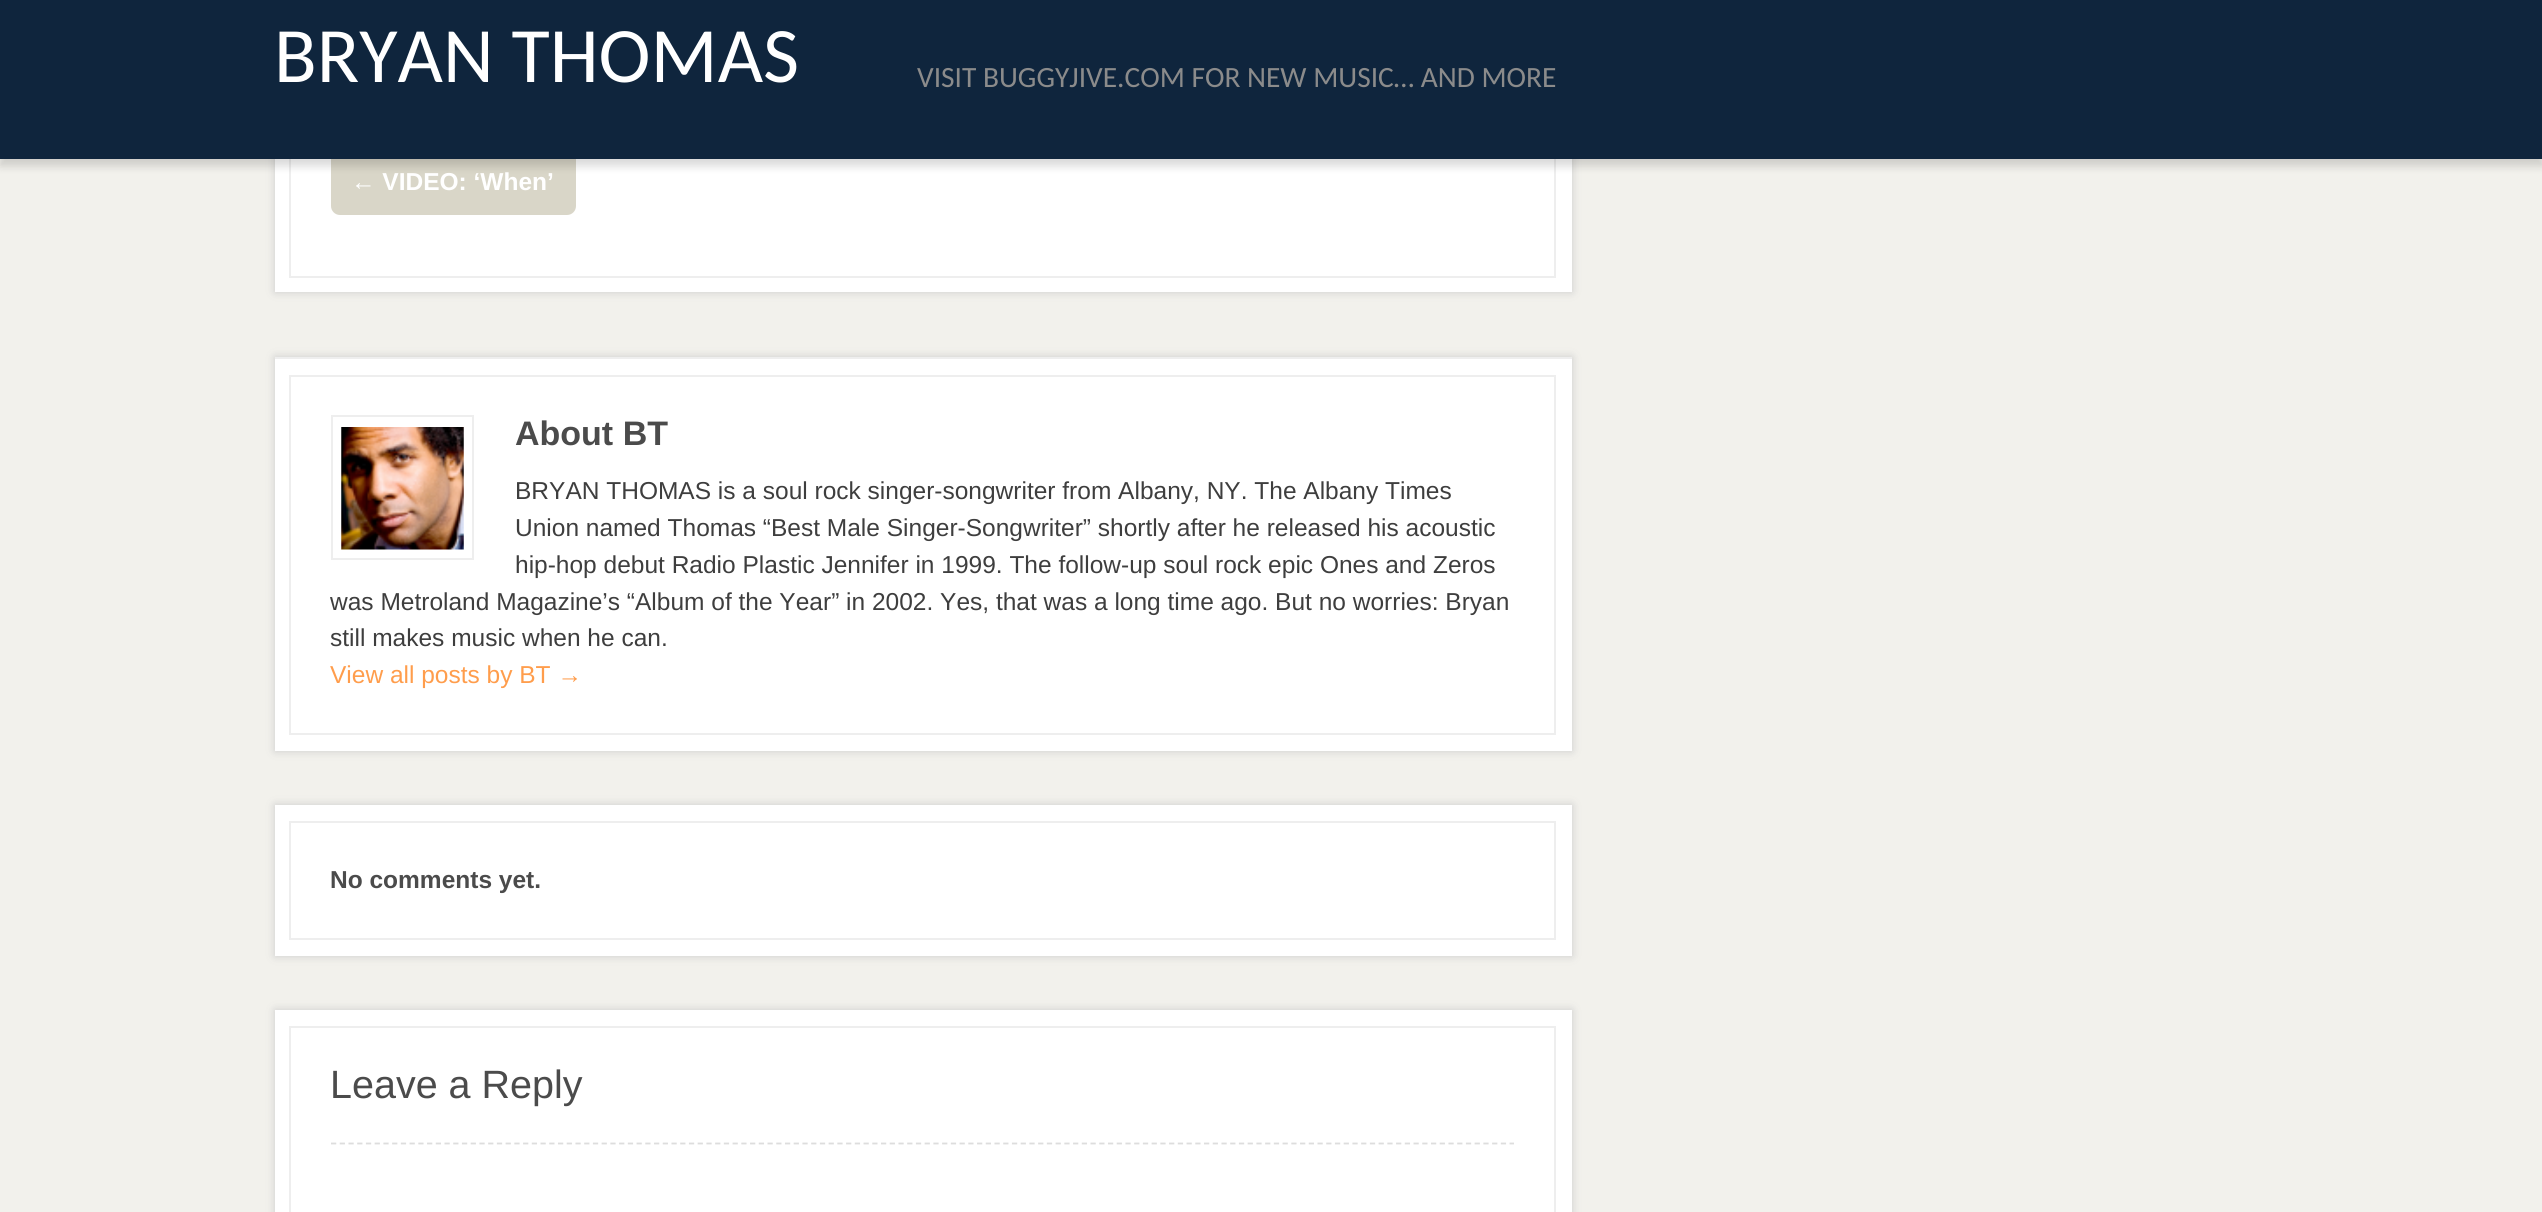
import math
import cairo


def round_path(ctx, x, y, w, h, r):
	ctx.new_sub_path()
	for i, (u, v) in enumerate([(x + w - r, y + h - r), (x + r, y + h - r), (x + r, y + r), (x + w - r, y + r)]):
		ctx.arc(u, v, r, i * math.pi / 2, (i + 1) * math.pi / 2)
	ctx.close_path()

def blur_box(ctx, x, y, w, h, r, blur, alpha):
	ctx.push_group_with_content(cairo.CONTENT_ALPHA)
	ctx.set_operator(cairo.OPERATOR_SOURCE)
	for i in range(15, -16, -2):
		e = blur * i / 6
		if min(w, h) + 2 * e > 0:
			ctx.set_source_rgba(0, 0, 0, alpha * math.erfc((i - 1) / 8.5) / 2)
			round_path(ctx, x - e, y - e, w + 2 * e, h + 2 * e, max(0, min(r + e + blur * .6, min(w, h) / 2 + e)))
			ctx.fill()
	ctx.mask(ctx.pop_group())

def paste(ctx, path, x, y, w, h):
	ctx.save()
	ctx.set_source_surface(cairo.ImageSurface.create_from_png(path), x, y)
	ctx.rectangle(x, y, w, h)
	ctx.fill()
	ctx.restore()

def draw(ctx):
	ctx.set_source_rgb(0.949, 0.945, 0.925)
	ctx.paint()
	ctx.set_source_rgb(0.8, 0.8, 0.8)
	blur_box(ctx, 275, -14, 1297, 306, 0, 4.5, 1)
	ctx.set_source_rgb(1, 1, 1)
	ctx.rectangle(275, 159, 1297, 133)
	ctx.fill()
	ctx.rectangle(290, -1, 1265, 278)
	ctx.set_source_rgb(0.933, 0.933, 0.933)
	ctx.stroke()
	ctx.set_source_rgb(0.851, 0.839, 0.784)
	round_path(ctx, 331, 149, 245, 66, 9)
	ctx.fill()
	ctx.set_source_rgb(0, 0, 0)
	blur_box(ctx, 0, 7, 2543, 159, 0, 4.5, 0.15)
	ctx.set_source_rgb(0.059, 0.145, 0.239)
	ctx.rectangle(0, 0, 2542, 159)
	ctx.fill()
	ctx.select_font_face('Carlito')
	ctx.set_font_size(78.5)
	ctx.set_source_rgb(1, 1, 1)
	ctx.move_to(274, 82)
	ctx.show_text('BRYAN THOMAS')
	ctx.set_font_size(29.4)
	ctx.set_source_rgb(0.545, 0.545, 0.545)
	ctx.move_to(917, 87)
	ctx.show_text('VISIT BUGGYJIVE.COM FOR NEW MUSIC… AND MORE')
	ctx.select_font_face('Liberation Sans', cairo.FONT_SLANT_NORMAL, cairo.FONT_WEIGHT_BOLD)
	ctx.set_font_size(24.5)
	ctx.set_source_rgb(1, 1, 1)
	ctx.move_to(351, 190)
	ctx.show_text('← VIDEO: ‘When’')
	ctx.set_source_rgb(0.8, 0.8, 0.8)
	blur_box(ctx, 275, 357, 1297, 394, 0, 4.5, 1)
	ctx.set_source_rgb(1, 1, 1)
	ctx.rectangle(275, 359, 1297, 392)
	ctx.fill()
	ctx.set_source_rgb(0.933, 0.933, 0.933)
	ctx.rectangle(275, 357, 1297, 2)
	ctx.fill()
	ctx.rectangle(290, 376, 1265, 358)
	ctx.stroke()
	ctx.rectangle(332, 416, 141, 143)
	ctx.stroke()
	paste(ctx, 'media/1.png', 341, 427, 123, 123)
	ctx.set_font_size(34)
	ctx.set_source_rgb(0.294, 0.294, 0.294)
	ctx.move_to(515, 445)
	ctx.show_text('About BT')
	ctx.select_font_face('Liberation Sans')
	ctx.set_font_size(24.5)
	ctx.set_source_rgb(0.243, 0.243, 0.243)
	for x, y, s in [
		(515, 499, 'BRYAN THOMAS is a soul rock singer-songwriter from Albany, NY. The Albany Times'),
		(515, 536, 'Union named Thomas “Best Male Singer-Songwriter” shortly after he released his acoustic'),
		(515, 573, 'hip-hop debut Radio Plastic Jennifer in 1999. The follow-up soul rock epic Ones and Zeros'),
		(330, 610, 'was Metroland Magazine’s “Album of the Year” in 2002. Yes, that was a long time ago. But no worries: Bryan'),
		(330, 646, 'still makes music when he can.'),
	]:
		ctx.move_to(x, y)
		ctx.show_text(s)
	ctx.set_source_rgb(1, 0.616, 0.298)
	ctx.move_to(330, 683)
	ctx.show_text('View all posts by BT →')
	ctx.set_source_rgb(0.8, 0.8, 0.8)
	blur_box(ctx, 275, 805, 1297, 151, 0, 4.5, 1)
	ctx.set_source_rgb(1, 1, 1)
	ctx.rectangle(275, 805, 1297, 151)
	ctx.fill()
	ctx.rectangle(290, 822, 1265, 117)
	ctx.set_source_rgb(0.933, 0.933, 0.933)
	ctx.stroke()
	ctx.select_font_face('Liberation Sans', cairo.FONT_SLANT_NORMAL, cairo.FONT_WEIGHT_BOLD)
	ctx.set_source_rgb(0.294, 0.294, 0.294)
	ctx.move_to(330, 888)
	ctx.show_text('No comments yet.')
	ctx.set_source_rgb(0.8, 0.8, 0.8)
	blur_box(ctx, 275, 1010, 1297, 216, 0, 4.5, 1)
	ctx.set_source_rgb(1, 1, 1)
	ctx.rectangle(275, 1010, 1297, 202)
	ctx.fill()
	ctx.rectangle(290, 1027, 1265, 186)
	ctx.set_source_rgb(0.933, 0.933, 0.933)
	ctx.stroke()
	ctx.new_path()
	ctx.move_to(331, 1143.5)
	ctx.line_to(1514, 1143.5)
	ctx.set_source_rgb(0.867, 0.867, 0.867)
	ctx.set_line_width(1.8)
	ctx.set_dash([5.25, 3.48])
	ctx.stroke()
	ctx.select_font_face('Liberation Sans')
	ctx.set_font_size(39.5)
	ctx.set_source_rgb(0.294, 0.294, 0.294)
	ctx.move_to(330, 1098)
	ctx.show_text('Leave a Reply')


surface = cairo.ImageSurface(cairo.FORMAT_RGB24, 2542, 1212)
ctx = cairo.Context(surface)
options = cairo.FontOptions()
options.set_hint_metrics(cairo.HINT_METRICS_OFF)
options.set_hint_style(cairo.HINT_STYLE_NONE)
ctx.set_font_options(options)
ctx.set_miter_limit(4)
draw(ctx)
surface.write_to_png('image.png')
